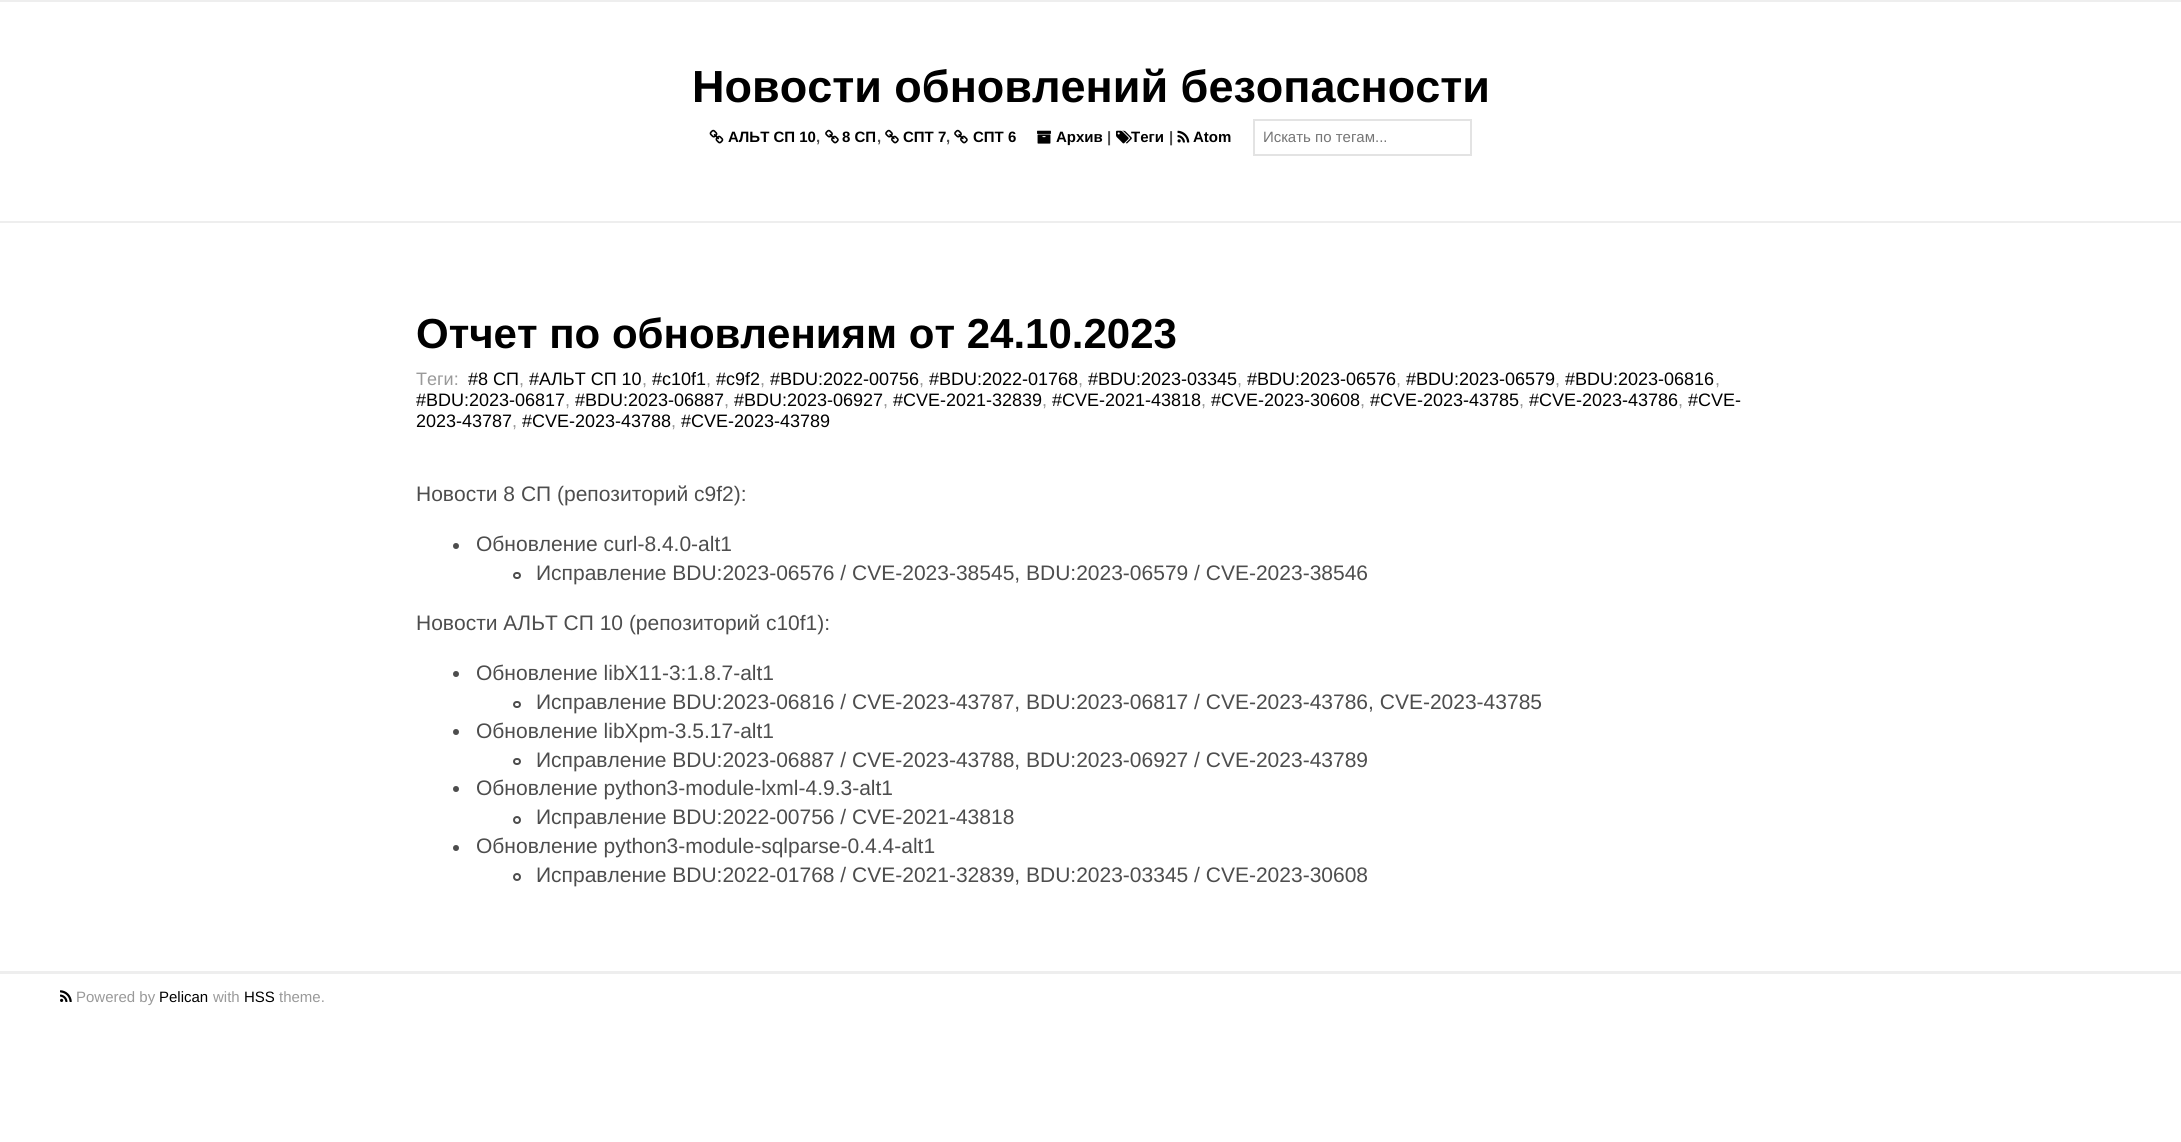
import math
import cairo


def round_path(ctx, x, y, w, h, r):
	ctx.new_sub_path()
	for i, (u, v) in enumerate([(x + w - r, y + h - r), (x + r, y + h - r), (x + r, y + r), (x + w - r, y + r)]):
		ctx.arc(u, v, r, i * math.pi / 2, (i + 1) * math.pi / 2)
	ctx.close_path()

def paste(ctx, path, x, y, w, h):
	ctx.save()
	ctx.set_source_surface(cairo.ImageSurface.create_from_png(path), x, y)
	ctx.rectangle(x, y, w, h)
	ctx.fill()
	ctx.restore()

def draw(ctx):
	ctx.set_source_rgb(1, 1, 1)
	ctx.paint()
	ctx.set_source_rgb(0.933, 0.933, 0.933)
	ctx.rectangle(0, 0, 2181, 2)
	ctx.fill()
	ctx.rectangle(0, 221, 2181, 2)
	ctx.fill()
	ctx.select_font_face('Liberation Sans', cairo.FONT_SLANT_NORMAL, cairo.FONT_WEIGHT_BOLD)
	ctx.set_font_size(45)
	ctx.set_source_rgb(0, 0, 0)
	ctx.move_to(692, 102)
	ctx.show_text('Новости обновлений безопасности')
	paste(ctx, 'media/1.png', 709, 129, 15, 15)
	ctx.set_font_size(15)
	ctx.move_to(728, 142)
	ctx.show_text('АЛЬТ СП 10')
	ctx.set_source_rgb(0.302, 0.302, 0.302)
	ctx.move_to(816, 142)
	ctx.show_text(',')
	paste(ctx, 'media/2.png', 825, 129, 14, 15)
	ctx.set_source_rgb(0, 0, 0)
	ctx.move_to(842, 142)
	ctx.show_text('8 СП')
	ctx.set_source_rgb(0.302, 0.302, 0.302)
	ctx.move_to(877, 142)
	ctx.show_text(',')
	paste(ctx, 'media/2.png', 885, 129, 14, 15)
	ctx.set_source_rgb(0, 0, 0)
	ctx.move_to(903, 142)
	ctx.show_text('СПТ 7')
	ctx.set_source_rgb(0.302, 0.302, 0.302)
	ctx.move_to(946, 142)
	ctx.show_text(',')
	paste(ctx, 'media/2.png', 954, 129, 14, 15)
	ctx.set_source_rgb(0, 0, 0)
	ctx.move_to(973, 142)
	ctx.show_text('СПТ 6')
	paste(ctx, 'media/3.png', 1037, 130, 14, 14)
	ctx.move_to(1056, 142)
	ctx.show_text('Архив')
	ctx.set_source_rgb(0.302, 0.302, 0.302)
	ctx.move_to(1107, 142)
	ctx.show_text('|')
	paste(ctx, 'media/4.png', 1116, 130, 16, 14)
	ctx.set_source_rgb(0, 0, 0)
	ctx.move_to(1131, 142)
	ctx.show_text('Теги')
	ctx.set_source_rgb(0.302, 0.302, 0.302)
	ctx.move_to(1169, 142)
	ctx.show_text('|')
	paste(ctx, 'media/5.png', 1177, 130, 13, 13)
	ctx.set_source_rgb(0, 0, 0)
	ctx.move_to(1193, 142)
	ctx.show_text('Atom')
	ctx.rectangle(1254, 120, 217, 35)
	ctx.set_source_rgb(0.89, 0.89, 0.89)
	ctx.stroke()
	ctx.select_font_face('Liberation Sans')
	ctx.set_source_rgb(0.459, 0.459, 0.459)
	ctx.move_to(1263, 142)
	ctx.show_text('Искать по тегам...')
	ctx.select_font_face('Liberation Sans', cairo.FONT_SLANT_NORMAL, cairo.FONT_WEIGHT_BOLD)
	ctx.set_font_size(42)
	ctx.set_source_rgb(0, 0, 0)
	ctx.move_to(416, 348)
	ctx.show_text('Отчет по обновлениям от 24.10.2023')
	ctx.select_font_face('Liberation Sans')
	ctx.set_font_size(18)
	ctx.set_source_rgb(0.6, 0.6, 0.6)
	ctx.move_to(416, 385)
	ctx.show_text('Теги:')
	ctx.set_source_rgb(0, 0, 0)
	ctx.move_to(468, 385)
	ctx.show_text('#8 СП')
	ctx.set_source_rgb(0.6, 0.6, 0.6)
	ctx.move_to(519, 385)
	ctx.show_text(',')
	ctx.set_source_rgb(0, 0, 0)
	ctx.move_to(529, 385)
	ctx.show_text('#АЛЬТ СП 10')
	ctx.set_source_rgb(0.6, 0.6, 0.6)
	ctx.move_to(642, 385)
	ctx.show_text(',')
	ctx.set_source_rgb(0, 0, 0)
	ctx.move_to(652, 385)
	ctx.show_text('#c10f1')
	ctx.set_source_rgb(0.6, 0.6, 0.6)
	ctx.move_to(706, 385)
	ctx.show_text(',')
	ctx.set_source_rgb(0, 0, 0)
	ctx.move_to(716, 385)
	ctx.show_text('#c9f2')
	ctx.set_source_rgb(0.6, 0.6, 0.6)
	ctx.move_to(760, 385)
	ctx.show_text(',')
	ctx.set_source_rgb(0, 0, 0)
	ctx.move_to(770, 385)
	ctx.show_text('#BDU:2022-00756')
	ctx.set_source_rgb(0.6, 0.6, 0.6)
	ctx.move_to(919, 385)
	ctx.show_text(',')
	ctx.set_source_rgb(0, 0, 0)
	ctx.move_to(929, 385)
	ctx.show_text('#BDU:2022-01768')
	ctx.set_source_rgb(0.6, 0.6, 0.6)
	ctx.move_to(1078, 385)
	ctx.show_text(',')
	ctx.set_source_rgb(0, 0, 0)
	ctx.move_to(1088, 385)
	ctx.show_text('#BDU:2023-03345')
	ctx.set_source_rgb(0.6, 0.6, 0.6)
	ctx.move_to(1237, 385)
	ctx.show_text(',')
	ctx.set_source_rgb(0, 0, 0)
	ctx.move_to(1247, 385)
	ctx.show_text('#BDU:2023-06576')
	ctx.set_source_rgb(0.6, 0.6, 0.6)
	ctx.move_to(1396, 385)
	ctx.show_text(',')
	ctx.set_source_rgb(0, 0, 0)
	ctx.move_to(1406, 385)
	ctx.show_text('#BDU:2023-06579')
	ctx.set_source_rgb(0.6, 0.6, 0.6)
	ctx.move_to(1555, 385)
	ctx.show_text(',')
	ctx.set_source_rgb(0, 0, 0)
	ctx.move_to(1565, 385)
	ctx.show_text('#BDU:2023-06816')
	ctx.set_source_rgb(0.6, 0.6, 0.6)
	ctx.move_to(1715, 385)
	ctx.show_text(',')
	ctx.set_source_rgb(0, 0, 0)
	ctx.move_to(416, 406)
	ctx.show_text('#BDU:2023-06817')
	ctx.set_source_rgb(0.6, 0.6, 0.6)
	ctx.move_to(565, 406)
	ctx.show_text(',')
	ctx.set_source_rgb(0, 0, 0)
	ctx.move_to(575, 406)
	ctx.show_text('#BDU:2023-06887')
	ctx.set_source_rgb(0.6, 0.6, 0.6)
	ctx.move_to(724, 406)
	ctx.show_text(',')
	ctx.set_source_rgb(0, 0, 0)
	ctx.move_to(734, 406)
	ctx.show_text('#BDU:2023-06927')
	ctx.set_source_rgb(0.6, 0.6, 0.6)
	ctx.move_to(883, 406)
	ctx.show_text(',')
	ctx.set_source_rgb(0, 0, 0)
	ctx.move_to(893, 406)
	ctx.show_text('#CVE-2021-32839')
	ctx.set_source_rgb(0.6, 0.6, 0.6)
	ctx.move_to(1042, 406)
	ctx.show_text(',')
	ctx.set_source_rgb(0, 0, 0)
	ctx.move_to(1052, 406)
	ctx.show_text('#CVE-2021-43818')
	ctx.set_source_rgb(0.6, 0.6, 0.6)
	ctx.move_to(1201, 406)
	ctx.show_text(',')
	ctx.set_source_rgb(0, 0, 0)
	ctx.move_to(1211, 406)
	ctx.show_text('#CVE-2023-30608')
	ctx.set_source_rgb(0.6, 0.6, 0.6)
	ctx.move_to(1360, 406)
	ctx.show_text(',')
	ctx.set_source_rgb(0, 0, 0)
	ctx.move_to(1370, 406)
	ctx.show_text('#CVE-2023-43785')
	ctx.set_source_rgb(0.6, 0.6, 0.6)
	ctx.move_to(1519, 406)
	ctx.show_text(',')
	ctx.set_source_rgb(0, 0, 0)
	ctx.move_to(1529, 406)
	ctx.show_text('#CVE-2023-43786')
	ctx.set_source_rgb(0.6, 0.6, 0.6)
	ctx.move_to(1678, 406)
	ctx.show_text(',')
	ctx.set_source_rgb(0, 0, 0)
	ctx.move_to(1688, 406)
	ctx.show_text('#CVE-')
	ctx.move_to(416, 427)
	ctx.show_text('2023-43787')
	ctx.set_source_rgb(0.6, 0.6, 0.6)
	ctx.move_to(512, 427)
	ctx.show_text(',')
	ctx.set_source_rgb(0, 0, 0)
	ctx.move_to(522, 427)
	ctx.show_text('#CVE-2023-43788')
	ctx.set_source_rgb(0.6, 0.6, 0.6)
	ctx.move_to(671, 427)
	ctx.show_text(',')
	ctx.set_source_rgb(0, 0, 0)
	ctx.move_to(681, 427)
	ctx.show_text('#CVE-2023-43789')
	ctx.set_font_size(21)
	ctx.set_source_rgb(0.302, 0.302, 0.302)
	ctx.move_to(416, 501)
	ctx.show_text('Новости 8 СП (репозиторий c9f2):')
	ctx.new_path()
	ctx.arc(456, 546, 3, 0, 2 * math.pi)
	ctx.fill()
	ctx.move_to(476, 551)
	ctx.show_text('Обновление curl-8.4.0-alt1')
	round_path(ctx, 514, 573, 6, 5, 2.5)
	ctx.stroke()
	ctx.move_to(536, 580)
	ctx.show_text('Исправление BDU:2023-06576 / CVE-2023-38545, BDU:2023-06579 / CVE-2023-38546')
	ctx.move_to(416, 630)
	ctx.show_text('Новости АЛЬТ СП 10 (репозиторий c10f1):')
	ctx.new_path()
	ctx.arc(456, 674, 3, 0, 2 * math.pi)
	ctx.fill()
	ctx.move_to(476, 680)
	ctx.show_text('Обновление libX11-3:1.8.7-alt1')
	round_path(ctx, 514, 702, 6, 5, 2.5)
	ctx.stroke()
	ctx.move_to(536, 709)
	ctx.show_text('Исправление BDU:2023-06816 / CVE-2023-43787, BDU:2023-06817 / CVE-2023-43786, CVE-2023-43785')
	ctx.new_path()
	ctx.arc(456, 732, 3, 0, 2 * math.pi)
	ctx.fill()
	ctx.move_to(476, 738)
	ctx.show_text('Обновление libXpm-3.5.17-alt1')
	round_path(ctx, 514, 759, 6, 5, 2.5)
	ctx.stroke()
	ctx.move_to(536, 767)
	ctx.show_text('Исправление BDU:2023-06887 / CVE-2023-43788, BDU:2023-06927 / CVE-2023-43789')
	ctx.new_path()
	ctx.arc(456, 789, 3, 0, 2 * math.pi)
	ctx.fill()
	ctx.move_to(476, 795)
	ctx.show_text('Обновление python3-module-lxml-4.9.3-alt1')
	ctx.new_path()
	ctx.arc(517, 820, 3, 0, 2 * math.pi)
	ctx.stroke()
	ctx.move_to(536, 824)
	ctx.show_text('Исправление BDU:2022-00756 / CVE-2021-43818')
	ctx.new_path()
	ctx.arc(456, 848, 3, 0, 2 * math.pi)
	ctx.fill()
	ctx.move_to(476, 853)
	ctx.show_text('Обновление python3-module-sqlparse-0.4.4-alt1')
	ctx.new_path()
	ctx.arc(517, 877, 3, 0, 2 * math.pi)
	ctx.stroke()
	ctx.move_to(536, 882)
	ctx.show_text('Исправление BDU:2022-01768 / CVE-2021-32839, BDU:2023-03345 / CVE-2023-30608')
	ctx.set_source_rgb(0.933, 0.933, 0.933)
	ctx.rectangle(0, 971, 2181, 3)
	ctx.fill()
	paste(ctx, 'media/6.png', 60, 990, 12, 12)
	ctx.set_font_size(15)
	ctx.set_source_rgb(0.6, 0.6, 0.6)
	ctx.move_to(76, 1002)
	ctx.show_text('Powered by')
	ctx.set_source_rgb(0, 0, 0)
	ctx.move_to(159, 1002)
	ctx.show_text('Pelican')
	ctx.set_source_rgb(0.6, 0.6, 0.6)
	ctx.move_to(213, 1002)
	ctx.show_text('with')
	ctx.set_source_rgb(0, 0, 0)
	ctx.move_to(244, 1002)
	ctx.show_text('HSS')
	ctx.set_source_rgb(0.6, 0.6, 0.6)
	ctx.move_to(279, 1002)
	ctx.show_text('theme.')


surface = cairo.ImageSurface(cairo.FORMAT_RGB24, 2181, 1142)
ctx = cairo.Context(surface)
options = cairo.FontOptions()
options.set_hint_metrics(cairo.HINT_METRICS_OFF)
options.set_hint_style(cairo.HINT_STYLE_NONE)
ctx.set_font_options(options)
ctx.set_miter_limit(4)
draw(ctx)
surface.write_to_png('image.png')
